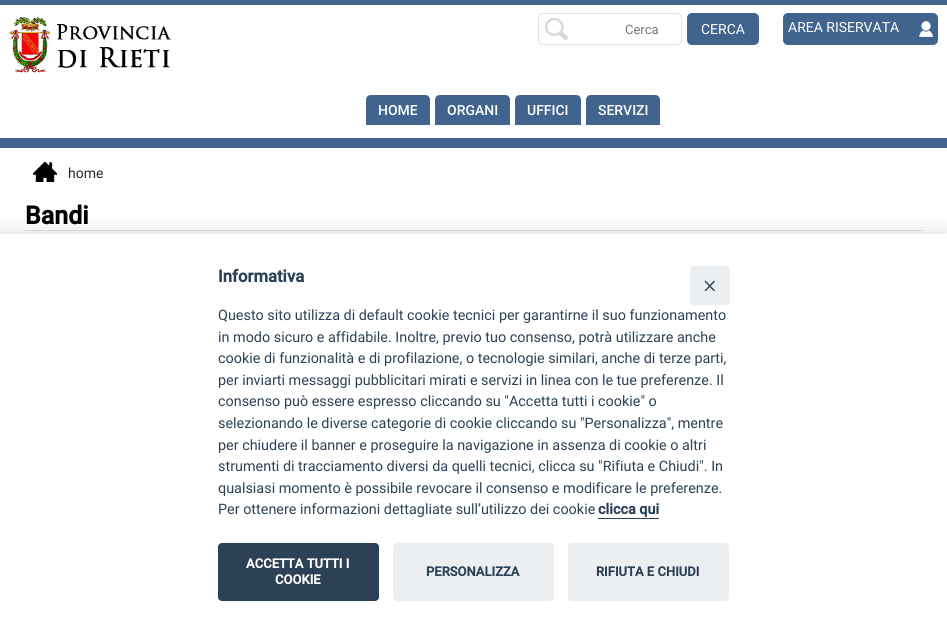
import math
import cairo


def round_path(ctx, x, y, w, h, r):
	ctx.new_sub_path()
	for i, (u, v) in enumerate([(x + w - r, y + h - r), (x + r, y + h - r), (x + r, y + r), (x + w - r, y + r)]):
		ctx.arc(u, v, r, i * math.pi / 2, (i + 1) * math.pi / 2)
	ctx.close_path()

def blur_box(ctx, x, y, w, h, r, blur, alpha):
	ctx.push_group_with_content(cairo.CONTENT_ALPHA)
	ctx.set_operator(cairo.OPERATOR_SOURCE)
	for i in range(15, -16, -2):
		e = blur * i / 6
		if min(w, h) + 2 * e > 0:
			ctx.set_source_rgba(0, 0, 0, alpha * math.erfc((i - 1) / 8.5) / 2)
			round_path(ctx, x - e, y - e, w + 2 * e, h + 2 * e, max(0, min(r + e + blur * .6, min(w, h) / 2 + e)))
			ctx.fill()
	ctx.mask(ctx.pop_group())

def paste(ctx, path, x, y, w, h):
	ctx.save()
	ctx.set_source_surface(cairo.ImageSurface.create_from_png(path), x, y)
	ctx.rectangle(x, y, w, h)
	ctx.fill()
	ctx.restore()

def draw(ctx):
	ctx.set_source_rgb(1, 1, 1)
	ctx.paint()
	ctx.set_source_rgb(0.255, 0.392, 0.561)
	ctx.rectangle(0, 0, 947, 5)
	ctx.fill()
	ctx.rectangle(0, 138, 947, 10)
	ctx.fill()
	paste(ctx, 'media/1.png', 9, 16, 162, 57)
	paste(ctx, 'media/2.png', 545, 18, 23, 22)
	round_path(ctx, 538.5, 13.5, 143, 31, 4.5)
	ctx.set_source_rgb(0.894, 0.894, 0.894)
	ctx.set_line_width(1)
	ctx.stroke()
	ctx.select_font_face('Roboto')
	ctx.set_font_size(13)
	ctx.set_source_rgb(0.459, 0.459, 0.459)
	ctx.move_to(625, 34)
	ctx.show_text('Cerca')
	ctx.set_source_rgb(0.255, 0.392, 0.561)
	round_path(ctx, 687, 13, 72, 32, 5)
	ctx.fill()
	ctx.set_font_size(14)
	ctx.set_source_rgb(1, 1, 1)
	ctx.move_to(701, 34)
	ctx.show_text('CERCA')
	ctx.set_source_rgb(0.255, 0.392, 0.561)
	round_path(ctx, 783, 13, 155, 32, 5)
	ctx.fill()
	paste(ctx, 'media/3.png', 919, 21, 14, 16)
	ctx.set_source_rgb(1, 1, 1)
	ctx.move_to(788, 32)
	ctx.show_text('AREA RISERVATA')
	ctx.set_source_rgb(0.255, 0.392, 0.561)
	ctx.new_path()
	ctx.move_to(371, 95)
	ctx.line_to(425, 95)
	ctx.curve_to(428, 95, 430, 97, 430, 100)
	ctx.line_to(430, 125)
	ctx.line_to(366, 125)
	ctx.line_to(366, 100)
	ctx.curve_to(366, 97, 368, 95, 371, 95)
	ctx.close_path()
	ctx.fill()
	ctx.select_font_face('Roboto Medium')
	ctx.set_source_rgb(1, 1, 1)
	ctx.move_to(378, 115)
	ctx.show_text('HOME')
	ctx.set_source_rgb(0.255, 0.392, 0.561)
	ctx.new_path()
	ctx.move_to(440, 95)
	ctx.line_to(505, 95)
	ctx.curve_to(508, 95, 510, 97, 510, 100)
	ctx.line_to(510, 125)
	ctx.line_to(435, 125)
	ctx.line_to(435, 100)
	ctx.curve_to(435, 97, 437, 95, 440, 95)
	ctx.close_path()
	ctx.fill()
	ctx.set_source_rgb(1, 1, 1)
	ctx.move_to(447, 115)
	ctx.show_text('ORGANI')
	ctx.set_source_rgb(0.255, 0.392, 0.561)
	ctx.new_path()
	ctx.move_to(520, 95)
	ctx.line_to(576, 95)
	ctx.curve_to(579, 95, 581, 97, 581, 100)
	ctx.line_to(581, 125)
	ctx.line_to(515, 125)
	ctx.line_to(515, 100)
	ctx.curve_to(515, 97, 517, 95, 520, 95)
	ctx.close_path()
	ctx.fill()
	ctx.set_source_rgb(1, 1, 1)
	ctx.move_to(527, 115)
	ctx.show_text('UFFICI')
	ctx.set_source_rgb(0.255, 0.392, 0.561)
	ctx.new_path()
	ctx.move_to(591, 95)
	ctx.line_to(655, 95)
	ctx.curve_to(658, 95, 660, 97, 660, 100)
	ctx.line_to(660, 125)
	ctx.line_to(586, 125)
	ctx.line_to(586, 100)
	ctx.curve_to(586, 97, 588, 95, 591, 95)
	ctx.close_path()
	ctx.fill()
	ctx.set_source_rgb(1, 1, 1)
	ctx.move_to(598, 115)
	ctx.show_text('SERVIZI')
	paste(ctx, 'media/4.png', 33, 162, 24, 20)
	ctx.select_font_face('Roboto')
	ctx.set_source_rgb(0.157, 0.157, 0.157)
	ctx.move_to(68, 178)
	ctx.show_text('home')
	ctx.set_source_rgb(0.871, 0.871, 0.871)
	ctx.rectangle(25, 230, 898, 1)
	ctx.fill()
	ctx.select_font_face('Roboto', cairo.FONT_SLANT_NORMAL, cairo.FONT_WEIGHT_BOLD)
	ctx.set_font_size(25)
	ctx.set_source_rgb(0, 0, 0)
	ctx.move_to(25, 224)
	ctx.show_text('Bandi')
	ctx.set_source_rgb(0.008, 0.008, 0.012)
	blur_box(ctx, 0, 244, 947, 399, 0, 15, 0.28)
	ctx.set_source_rgb(1, 1, 1)
	ctx.rectangle(0, 234, 947, 399)
	ctx.fill()
	ctx.set_font_size(16.75)
	ctx.set_source_rgb(0.176, 0.255, 0.337)
	ctx.move_to(218, 282)
	ctx.show_text('Informativa')
	ctx.set_source_rgb(0.918, 0.937, 0.949)
	round_path(ctx, 690, 266, 40, 39, 4)
	ctx.fill()
	ctx.set_source_rgb(0.176, 0.255, 0.337)
	ctx.new_path()
	ctx.move_to(714.5, 281)
	ctx.curve_to(715, 281.5, 715, 282, 714.5, 282)
	ctx.line_to(706, 291)
	ctx.curve_to(705.5, 291, 705, 291, 705, 291)
	ctx.curve_to(704.5, 290.5, 704.5, 290, 705, 290)
	ctx.line_to(713.5, 281)
	ctx.curve_to(714, 280.5, 714.5, 280.5, 714.5, 281)
	ctx.close_path()
	ctx.fill()
	ctx.new_path()
	ctx.move_to(705, 281)
	ctx.curve_to(705, 280.5, 705.5, 280.5, 706, 281)
	ctx.line_to(714.5, 290)
	ctx.curve_to(715, 290, 715, 290.5, 714.5, 291)
	ctx.curve_to(714.5, 291, 714, 291, 713.5, 291)
	ctx.line_to(705, 282)
	ctx.curve_to(704.5, 282, 704.5, 281.5, 705, 281)
	ctx.close_path()
	ctx.fill()
	ctx.select_font_face('Roboto')
	ctx.set_font_size(14.4)
	for x, y, s in [
		(218, 320, 'Questo sito utilizza di default cookie tecnici per garantirne il suo funzionamento'),
		(218, 342, 'in modo sicuro e affidabile. Inoltre, previo tuo consenso, potrà utilizzare anche'),
		(218, 363, 'cookie di funzionalità e di profilazione, o tecnologie similari, anche di terze parti,'),
		(218, 385, 'per inviarti messaggi pubblicitari mirati e servizi in linea con le tue preferenze. Il'),
		(218, 406, 'consenso può essere espresso cliccando su "Accetta tutti i cookie" o'),
		(218, 428, 'selezionando le diverse categorie di cookie cliccando su "Personalizza", mentre'),
		(218, 450, 'per chiudere il banner e proseguire la navigazione in assenza di cookie o altri'),
		(218, 471, 'strumenti di tracciamento diversi da quelli tecnici, clicca su "Rifiuta e Chiudi". In'),
		(218, 493, 'qualsiasi momento è possibile revocare il consenso e modificare le preferenze.'),
		(218, 514, 'Per ottenere informazioni dettagliate sull’utilizzo dei cookie'),
	]:
		ctx.move_to(x, y)
		ctx.show_text(s)
	ctx.select_font_face('Roboto', cairo.FONT_SLANT_NORMAL, cairo.FONT_WEIGHT_BOLD)
	ctx.move_to(598, 514)
	ctx.show_text('clicca qui')
	ctx.rectangle(598, 518, 61, 1)
	ctx.fill()
	round_path(ctx, 218, 543, 161, 58, 4)
	ctx.fill()
	ctx.set_font_size(13)
	ctx.set_source_rgb(1, 1, 1)
	ctx.move_to(246, 568)
	ctx.show_text('ACCETTA TUTTI I')
	ctx.move_to(275, 584)
	ctx.show_text('COOKIE')
	ctx.set_source_rgb(0.918, 0.937, 0.949)
	round_path(ctx, 393, 543, 161, 58, 4)
	ctx.fill()
	ctx.set_source_rgb(0.176, 0.255, 0.337)
	ctx.move_to(426, 576)
	ctx.show_text('PERSONALIZZA')
	ctx.set_source_rgb(0.918, 0.937, 0.949)
	round_path(ctx, 568, 543, 161, 58, 4)
	ctx.fill()
	ctx.set_source_rgb(0.176, 0.255, 0.337)
	ctx.move_to(596, 576)
	ctx.show_text('RIFIUTA E CHIUDI')


surface = cairo.ImageSurface(cairo.FORMAT_RGB24, 947, 633)
ctx = cairo.Context(surface)
options = cairo.FontOptions()
options.set_hint_metrics(cairo.HINT_METRICS_OFF)
options.set_hint_style(cairo.HINT_STYLE_NONE)
ctx.set_font_options(options)
ctx.set_miter_limit(4)
draw(ctx)
surface.write_to_png('image.png')
